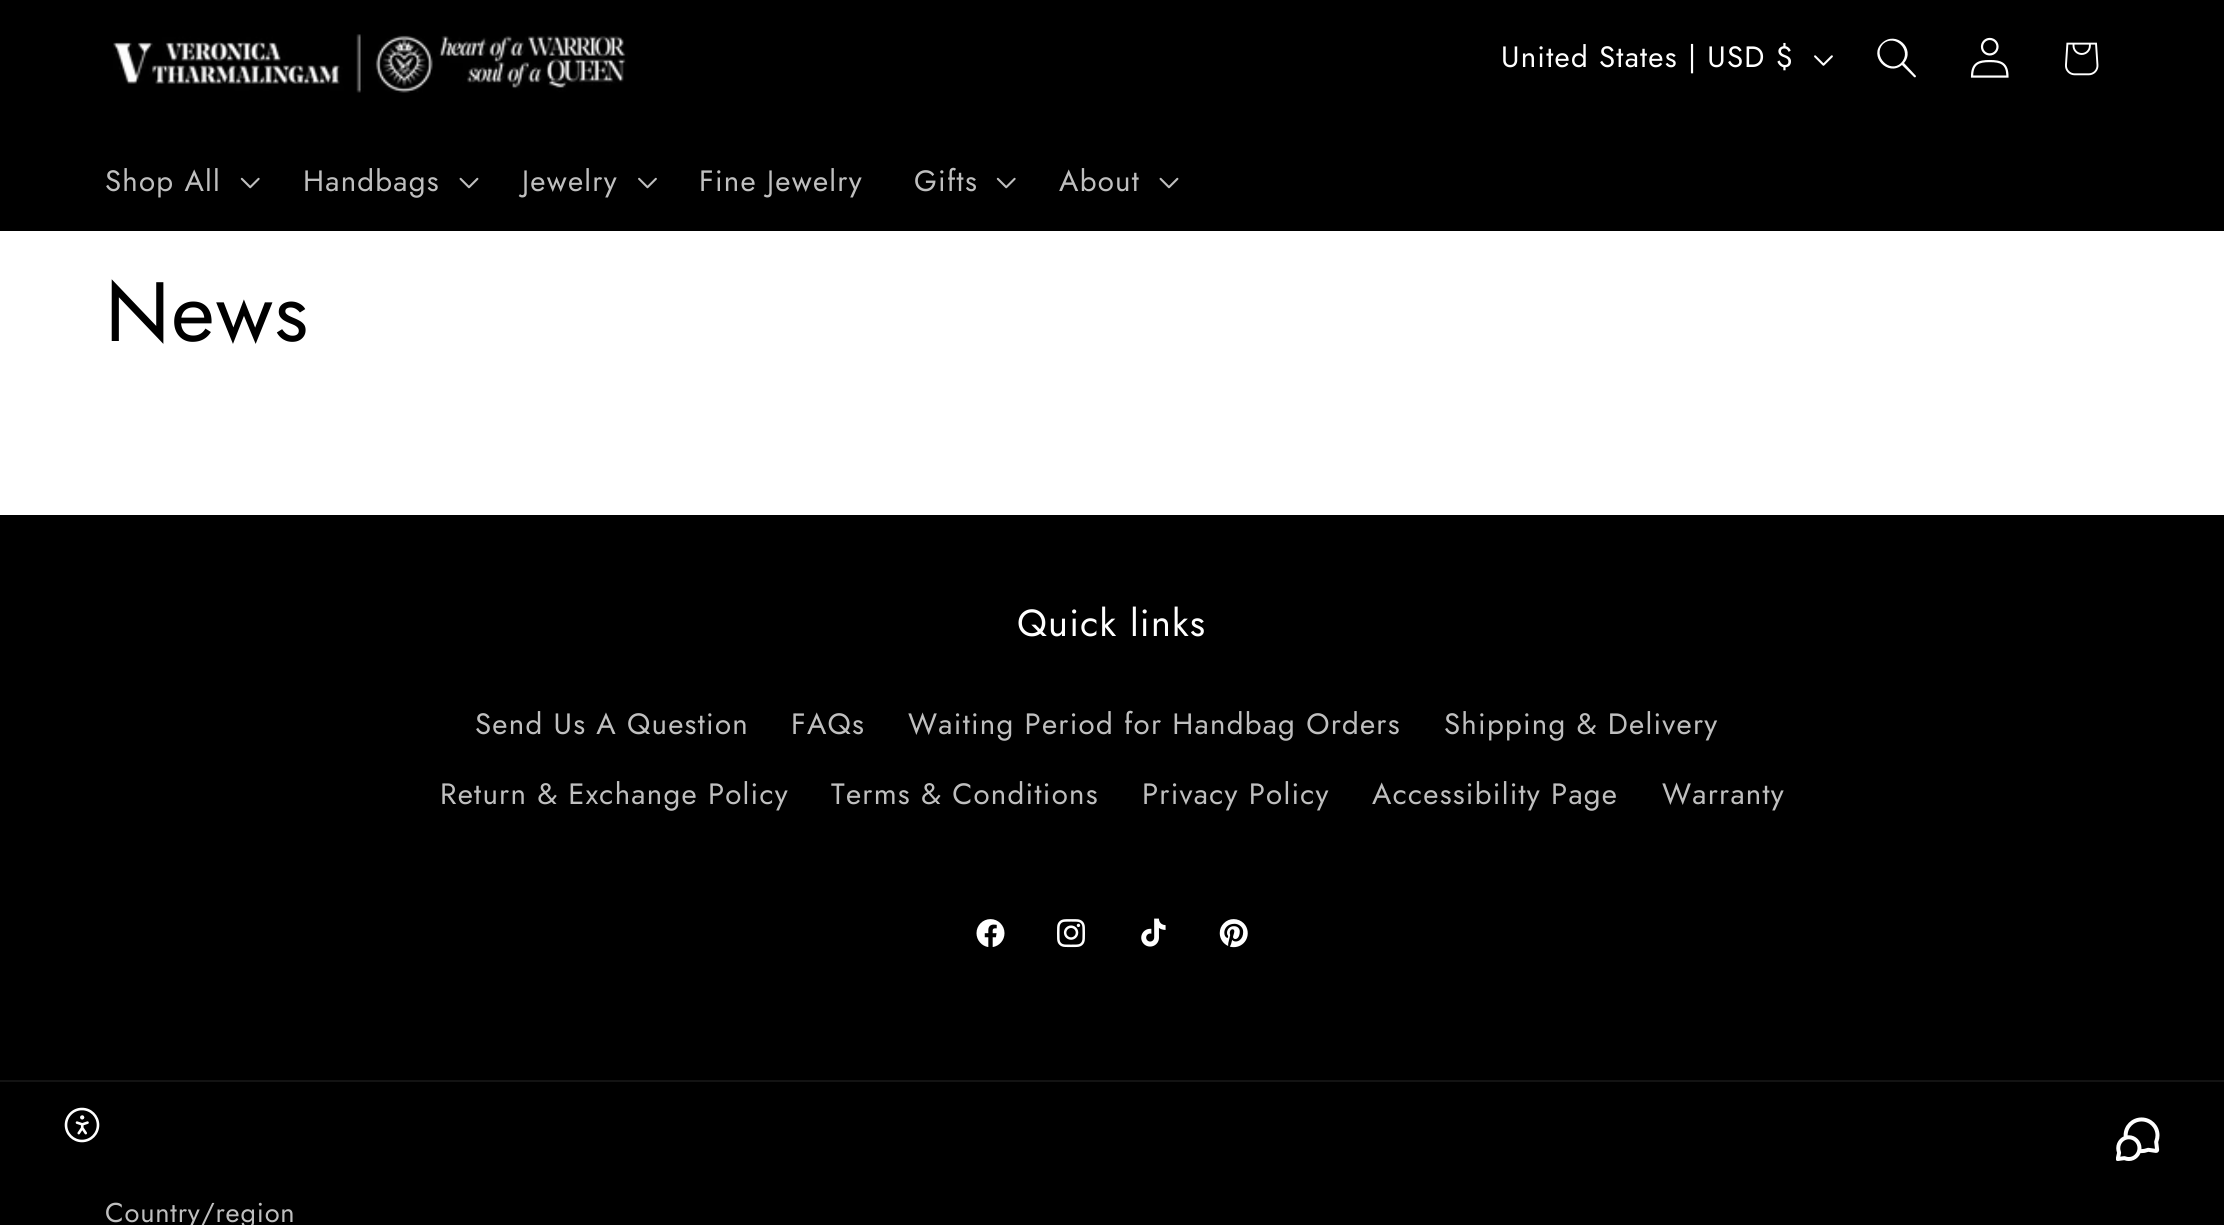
import math
import cairo


def write_spaced(ctx, x, y, s, letter, word):
	ctx.move_to(x, y)
	for ch in s:
		ctx.show_text(ch)
		ctx.rel_move_to(letter + word * (ch == ' '), 0)

def paste(ctx, path, x, y, w, h):
	ctx.save()
	ctx.set_source_surface(cairo.ImageSurface.create_from_png(path), x, y)
	ctx.rectangle(x, y, w, h)
	ctx.fill()
	ctx.restore()

def draw(ctx):
	ctx.set_source_rgb(1, 1, 1)
	ctx.paint()
	ctx.set_source_rgb(0, 0, 0)
	ctx.rectangle(0, 0, 2224, 231)
	ctx.fill()
	paste(ctx, 'media/1.png', 113, 34, 515, 59)
	ctx.select_font_face('Jost')
	ctx.set_font_size(29.4)
	ctx.set_source_rgb(1, 1, 1)
	write_spaced(ctx, 1501, 67, 'United States | USD $', 1.25, 0)
	paste(ctx, 'media/2.png', 1814, 55, 19, 11)
	ctx.set_fill_rule(cairo.FILL_RULE_EVEN_ODD)
	ctx.new_path()
	ctx.move_to(1901, 63)
	ctx.curve_to(1890, 74, 1872, 56, 1883, 44)
	ctx.curve_to(1895, 33, 1913, 51, 1901, 63)
	ctx.move_to(1902, 65)
	ctx.curve_to(1888, 77, 1868, 56, 1882, 43)
	ctx.curve_to(1896, 30, 1916, 49, 1904, 63)
	ctx.line_to(1916, 76)
	ctx.curve_to(1916, 77, 1915, 78, 1914, 77)
	ctx.close_path()
	ctx.fill()
	paste(ctx, 'media/3.png', 1970, 37, 39, 41)
	paste(ctx, 'media/4.png', 2065, 42, 34, 34)
	ctx.set_source_rgb(0.749, 0.749, 0.749)
	write_spaced(ctx, 105, 191, 'Shop All', 1.25, 0)
	paste(ctx, 'media/5.png', 240, 177, 20, 12)
	write_spaced(ctx, 303, 191, 'Handbags', 1.25, 0)
	paste(ctx, 'media/6.png', 459, 177, 20, 12)
	write_spaced(ctx, 522, 191, 'Jewelry', 1.25, 0)
	paste(ctx, 'media/7.png', 638, 177, 19, 12)
	write_spaced(ctx, 699, 191, 'Fine Jewelry', 1.25, 0)
	write_spaced(ctx, 914, 191, 'Gifts', 1.25, 0)
	paste(ctx, 'media/5.png', 996, 177, 20, 12)
	write_spaced(ctx, 1059, 191, 'About', 1.25, 0)
	paste(ctx, 'media/6.png', 1159, 177, 20, 12)
	ctx.set_font_size(84)
	ctx.set_source_rgb(0, 0, 0)
	write_spaced(ctx, 105, 341, 'News', 1.25, 0)
	ctx.rectangle(0, 515, 2224, 710)
	ctx.fill()
	paste(ctx, 'media/8.png', 64, 1107, 36, 36)
	ctx.set_font_size(37.75)
	ctx.set_source_rgb(1, 1, 1)
	write_spaced(ctx, 1017, 636, 'Quick links', 1.25, 0)
	ctx.set_font_size(29.4)
	ctx.set_source_rgb(0.749, 0.749, 0.749)
	for x, y, s in [
		(475, 734, 'Send Us A Question'),
		(791, 734, 'FAQs'),
		(908, 734, 'Waiting Period for Handbag Orders'),
		(1444, 734, 'Shipping & Delivery'),
		(440, 804, 'Return & Exchange Policy'),
		(831, 804, 'Terms & Conditions'),
		(1142, 804, 'Privacy Policy'),
		(1372, 804, 'Accessibility Page'),
		(1662, 804, 'Warranty'),
	]:
		write_spaced(ctx, x, y, s, 1.25, 0)
	paste(ctx, 'media/9.png', 976, 919, 29, 28)
	paste(ctx, 'media/10.png', 1057, 919, 28, 29)
	paste(ctx, 'media/11.png', 1141, 918, 25, 29)
	paste(ctx, 'media/12.png', 1219, 919, 29, 29)
	ctx.set_source_rgb(0.078, 0.078, 0.078)
	ctx.rectangle(0, 1080, 2224, 2)
	ctx.fill()
	ctx.set_font_size(27.25)
	ctx.set_source_rgb(0.749, 0.749, 0.749)
	write_spaced(ctx, 105, 1222, 'Country/region', 0.8, 0)
	paste(ctx, 'media/13.png', 2116, 1117, 44, 44)


surface = cairo.ImageSurface(cairo.FORMAT_RGB24, 2224, 1225)
ctx = cairo.Context(surface)
options = cairo.FontOptions()
options.set_hint_metrics(cairo.HINT_METRICS_OFF)
options.set_hint_style(cairo.HINT_STYLE_NONE)
ctx.set_font_options(options)
ctx.set_miter_limit(4)
draw(ctx)
surface.write_to_png('image.png')
